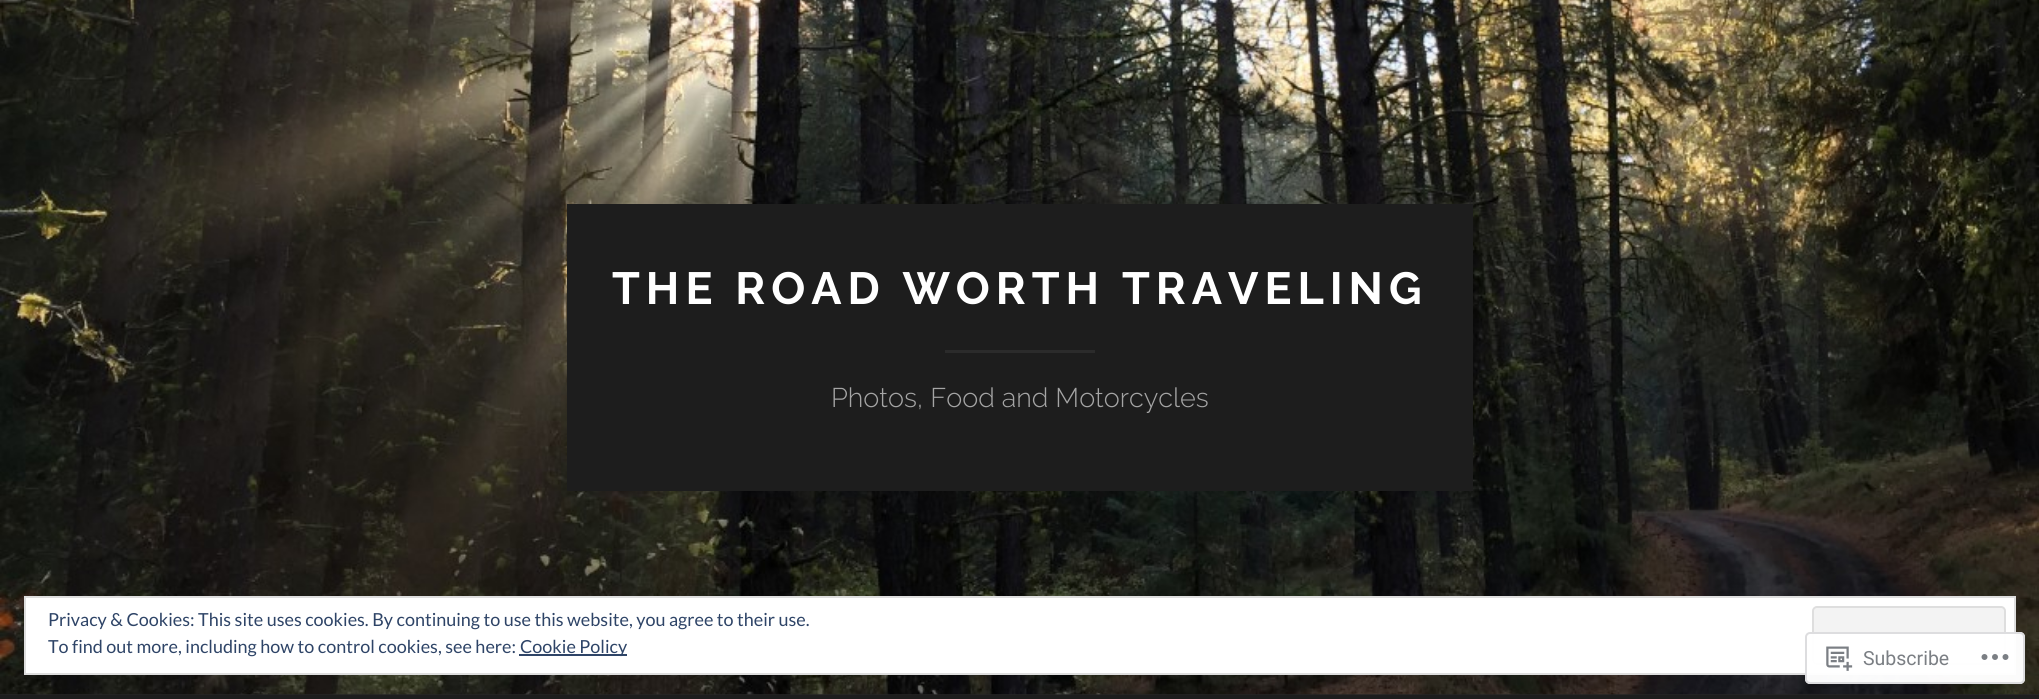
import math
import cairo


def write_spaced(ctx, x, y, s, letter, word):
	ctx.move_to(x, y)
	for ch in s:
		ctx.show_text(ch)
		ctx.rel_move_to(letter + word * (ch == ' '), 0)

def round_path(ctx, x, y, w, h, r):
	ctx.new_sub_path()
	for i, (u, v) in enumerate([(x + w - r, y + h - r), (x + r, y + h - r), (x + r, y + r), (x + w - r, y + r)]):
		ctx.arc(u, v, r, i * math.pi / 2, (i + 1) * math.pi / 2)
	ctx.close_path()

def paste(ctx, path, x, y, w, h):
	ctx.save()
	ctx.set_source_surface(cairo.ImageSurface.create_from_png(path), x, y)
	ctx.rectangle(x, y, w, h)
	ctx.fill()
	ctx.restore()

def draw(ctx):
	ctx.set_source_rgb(0.149, 0.149, 0.149)
	ctx.paint()
	paste(ctx, 'media/1.png', 0, 0, 2039, 695)
	ctx.set_source_rgb(0.114, 0.114, 0.114)
	ctx.rectangle(567, 204, 906, 287)
	ctx.fill()
	ctx.select_font_face('Raleway', cairo.FONT_SLANT_NORMAL, cairo.FONT_WEIGHT_BOLD)
	ctx.set_font_size(45)
	ctx.set_source_rgb(1, 1, 1)
	write_spaced(ctx, 612, 304, 'THE ROAD WORTH TRAVELING', 6, 0)
	ctx.set_source_rgb(0.169, 0.169, 0.169)
	ctx.rectangle(945, 350, 150, 3)
	ctx.fill()
	ctx.select_font_face('Raleway Light')
	ctx.set_font_size(27)
	ctx.set_source_rgb(0.647, 0.647, 0.647)
	ctx.move_to(831, 407)
	ctx.show_text('Photos, Food and Motorcycles')
	ctx.set_source_rgb(0.114, 0.114, 0.114)
	ctx.rectangle(0, 695, 2039, 4)
	ctx.fill()
	ctx.set_source_rgb(1, 1, 1)
	ctx.rectangle(25, 597, 1990, 77)
	ctx.fill_preserve()
	ctx.set_source_rgb(0.871, 0.871, 0.871)
	ctx.stroke()
	ctx.select_font_face('Lato')
	ctx.set_font_size(18)
	ctx.set_source_rgb(0.18, 0.267, 0.404)
	ctx.move_to(48, 626)
	ctx.show_text('Privacy & Cookies: This site uses cookies. By continuing to use this website, you agree to their use.')
	ctx.set_source_rgb(0.953, 0.953, 0.953)
	round_path(ctx, 1813, 607, 192, 57, 4)
	ctx.fill_preserve()
	ctx.set_source_rgb(0.871, 0.871, 0.871)
	ctx.stroke()
	ctx.set_source_rgb(0.18, 0.267, 0.404)
	ctx.move_to(48, 653)
	ctx.show_text('To find out more, including how to control cookies, see here:')
	ctx.rectangle(519, 654, 108, 2)
	ctx.fill()
	ctx.move_to(520, 653)
	ctx.show_text('Cookie Policy')
	ctx.set_source_rgba(1, 1, 1, 0.98)
	round_path(ctx, 1805, 632, 220, 52, 5)
	ctx.fill()
	round_path(ctx, 1806, 633, 218, 50, 4)
	ctx.set_source_rgba(0.863, 0.863, 0.871, 0.98)
	ctx.stroke()
	paste(ctx, 'media/2.png', 1826, 646, 27, 25)
	ctx.select_font_face('Roboto')
	ctx.set_font_size(19.5)
	ctx.set_source_rgb(0.482, 0.498, 0.518)
	ctx.move_to(1863, 665)
	ctx.show_text('Subscribe')
	paste(ctx, 'media/3.png', 1981, 654, 28, 6)


surface = cairo.ImageSurface(cairo.FORMAT_RGB24, 2039, 699)
ctx = cairo.Context(surface)
options = cairo.FontOptions()
options.set_hint_metrics(cairo.HINT_METRICS_OFF)
options.set_hint_style(cairo.HINT_STYLE_NONE)
ctx.set_font_options(options)
ctx.set_miter_limit(4)
draw(ctx)
surface.write_to_png('image.png')
